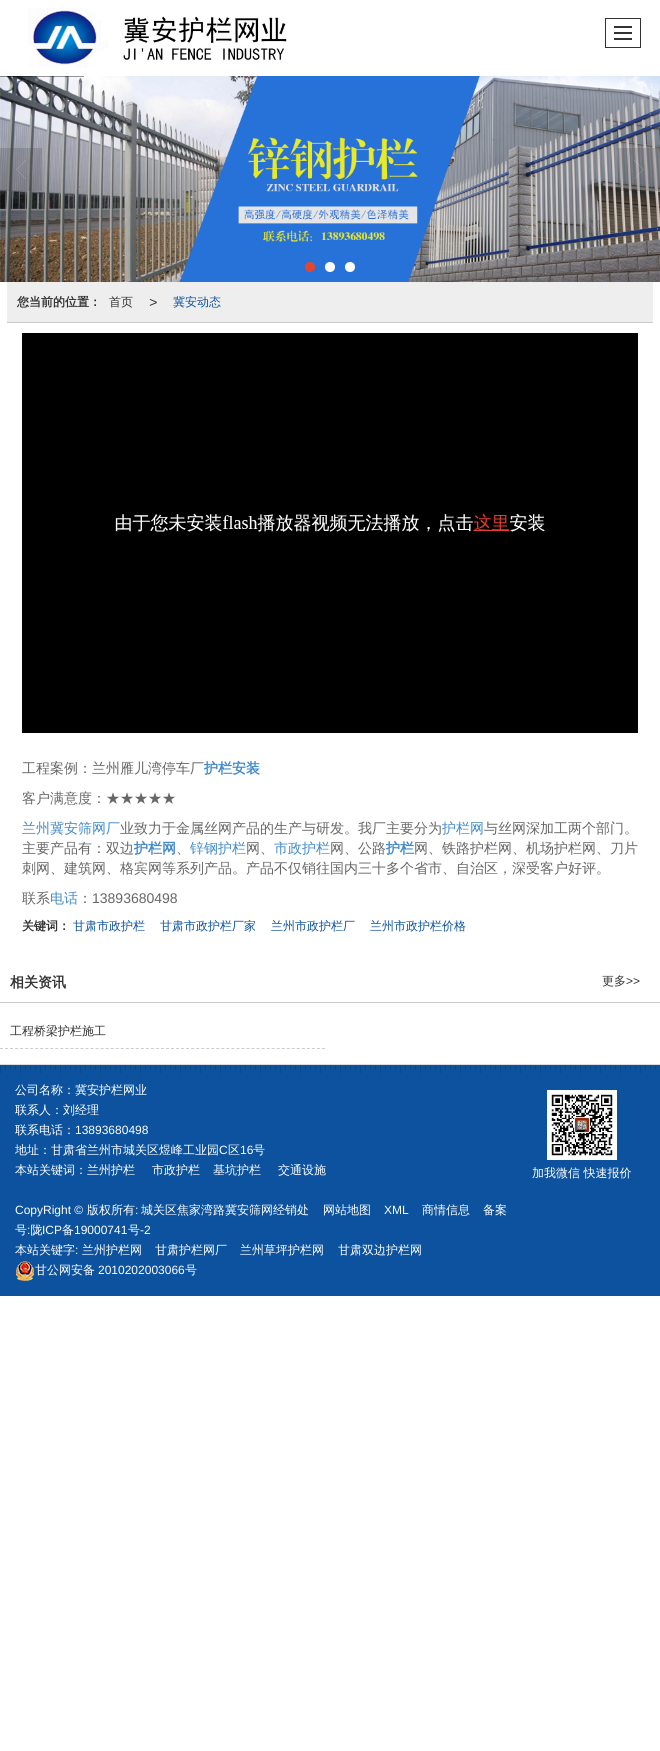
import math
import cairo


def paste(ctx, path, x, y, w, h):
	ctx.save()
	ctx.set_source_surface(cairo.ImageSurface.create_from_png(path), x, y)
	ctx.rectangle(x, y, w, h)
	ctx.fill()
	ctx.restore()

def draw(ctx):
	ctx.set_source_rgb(1, 1, 1)
	ctx.paint()
	paste(ctx, 'media/1.png', 28, 8, 259, 60)
	ctx.rectangle(605.5, 18.5, 35, 29)
	ctx.set_source_rgb(0.2, 0.2, 0.2)
	ctx.set_line_width(1)
	ctx.stroke()
	ctx.rectangle(614, 26, 18, 2)
	ctx.rectangle(614, 32, 18, 2)
	ctx.rectangle(614, 38, 18, 2)
	ctx.fill()
	paste(ctx, 'media/2.png', 0, 76, 660, 206)
	ctx.set_source_rgba(0, 0, 0, 0.4)
	ctx.rectangle(0, 76, 84, 1)
	ctx.fill()
	ctx.set_source_rgba(0.224, 0.224, 0.224, 0.2)
	ctx.rectangle(0, 148, 42, 43)
	ctx.fill()
	paste(ctx, 'media/3.png', 16, 160, 10, 19)
	ctx.rectangle(618, 148, 42, 43)
	ctx.fill()
	paste(ctx, 'media/4.png', 634, 160, 10, 19)
	ctx.set_source_rgb(0.882, 0.278, 0.184)
	ctx.arc(310, 267, 5, 0, 2 * math.pi)
	ctx.fill()
	ctx.set_source_rgb(1, 1, 1)
	ctx.arc(330, 267, 5, 0, 2 * math.pi)
	ctx.fill()
	ctx.arc(350, 267, 5, 0, 2 * math.pi)
	ctx.fill()
	ctx.set_source_rgb(0.933, 0.933, 0.933)
	ctx.rectangle(7, 282, 646, 40)
	ctx.fill()
	ctx.set_source_rgb(0.8, 0.8, 0.8)
	ctx.rectangle(7, 322, 646, 1)
	ctx.fill()
	ctx.select_font_face('WenQuanYi Zen Hei', cairo.FONT_SLANT_NORMAL, cairo.FONT_WEIGHT_BOLD)
	ctx.set_font_size(12)
	ctx.set_source_rgb(0.2, 0.2, 0.2)
	ctx.move_to(17, 306)
	ctx.show_text('您当前的位置：')
	ctx.select_font_face('WenQuanYi Zen Hei Medium')
	ctx.move_to(109, 306)
	ctx.show_text('首页')
	ctx.select_font_face('Liberation Sans', cairo.FONT_SLANT_ITALIC)
	ctx.set_font_size(14)
	ctx.move_to(149, 307)
	ctx.show_text('>')
	ctx.select_font_face('WenQuanYi Zen Hei Medium')
	ctx.set_font_size(12)
	ctx.set_source_rgb(0.047, 0.322, 0.62)
	ctx.move_to(173, 306)
	ctx.show_text('冀安动态')
	paste(ctx, 'media/5.png', 22, 333, 616, 400)
	ctx.set_font_size(14)
	ctx.set_source_rgb(0.4, 0.4, 0.4)
	ctx.move_to(22, 773)
	ctx.show_text('工程案例：兰州雁儿湾停车厂')
	ctx.select_font_face('WenQuanYi Zen Hei', cairo.FONT_SLANT_NORMAL, cairo.FONT_WEIGHT_BOLD)
	ctx.set_source_rgb(0.259, 0.545, 0.792)
	ctx.move_to(204, 773)
	ctx.show_text('护栏安装')
	ctx.select_font_face('WenQuanYi Zen Hei Medium')
	ctx.set_source_rgb(0.4, 0.4, 0.4)
	ctx.move_to(22, 803)
	ctx.show_text('客户满意度：★★★★★')
	ctx.set_source_rgb(0.259, 0.545, 0.792)
	ctx.move_to(22, 833)
	ctx.show_text('兰州冀安筛网厂')
	ctx.set_source_rgb(0.4, 0.4, 0.4)
	ctx.move_to(120, 833)
	ctx.show_text('业致力于金属丝网产品的生产与研发。我厂主要分为')
	ctx.set_source_rgb(0.259, 0.545, 0.792)
	ctx.move_to(442, 833)
	ctx.show_text('护栏网')
	ctx.set_source_rgb(0.4, 0.4, 0.4)
	ctx.move_to(484, 833)
	ctx.show_text('与丝网深加工两个部门。')
	ctx.move_to(22, 853)
	ctx.show_text('主要产品有：双边')
	ctx.select_font_face('WenQuanYi Zen Hei', cairo.FONT_SLANT_NORMAL, cairo.FONT_WEIGHT_BOLD)
	ctx.set_source_rgb(0.259, 0.545, 0.792)
	ctx.move_to(134, 853)
	ctx.show_text('护栏网')
	ctx.select_font_face('WenQuanYi Zen Hei Medium')
	ctx.set_source_rgb(0.4, 0.4, 0.4)
	ctx.move_to(176, 853)
	ctx.show_text('、')
	ctx.set_source_rgb(0.259, 0.545, 0.792)
	ctx.move_to(190, 853)
	ctx.show_text('锌钢护栏')
	ctx.set_source_rgb(0.4, 0.4, 0.4)
	ctx.move_to(246, 853)
	ctx.show_text('网、')
	ctx.set_source_rgb(0.259, 0.545, 0.792)
	ctx.move_to(274, 853)
	ctx.show_text('市政护栏')
	ctx.set_source_rgb(0.4, 0.4, 0.4)
	ctx.move_to(330, 853)
	ctx.show_text('网、公路')
	ctx.select_font_face('WenQuanYi Zen Hei', cairo.FONT_SLANT_NORMAL, cairo.FONT_WEIGHT_BOLD)
	ctx.set_source_rgb(0.259, 0.545, 0.792)
	ctx.move_to(386, 853)
	ctx.show_text('护栏')
	ctx.select_font_face('WenQuanYi Zen Hei Medium')
	ctx.set_source_rgb(0.4, 0.4, 0.4)
	for x, y, s in [
		(414, 853, '网、铁路护栏网、机场护栏网、刀片'),
		(22, 873, '刺网、建筑网、格宾网等系列产品。产品不仅销往国内三十多个省市、自治区，深受客户好评。'),
		(22, 903, '联系'),
	]:
		ctx.move_to(x, y)
		ctx.show_text(s)
	ctx.set_source_rgb(0.259, 0.545, 0.792)
	ctx.move_to(50, 903)
	ctx.show_text('电话')
	ctx.set_source_rgb(0.4, 0.4, 0.4)
	ctx.move_to(78, 903)
	ctx.show_text('：')
	ctx.select_font_face('Liberation Sans')
	ctx.move_to(92, 903)
	ctx.show_text('13893680498')
	ctx.select_font_face('WenQuanYi Zen Hei', cairo.FONT_SLANT_NORMAL, cairo.FONT_WEIGHT_BOLD)
	ctx.set_font_size(12)
	ctx.set_source_rgb(0.2, 0.2, 0.2)
	ctx.move_to(22, 930)
	ctx.show_text('关键词：')
	ctx.select_font_face('WenQuanYi Zen Hei Medium')
	ctx.set_source_rgb(0.047, 0.322, 0.62)
	for x, y, s in [
		(73, 930, '甘肃市政护栏'),
		(160, 930, '甘肃市政护栏厂家'),
		(271, 930, '兰州市政护栏厂'),
		(370, 930, '兰州市政护栏价格'),
	]:
		ctx.move_to(x, y)
		ctx.show_text(s)
	ctx.set_source_rgb(0.8, 0.8, 0.8)
	ctx.rectangle(0, 1002, 660, 1)
	ctx.fill()
	ctx.select_font_face('WenQuanYi Zen Hei', cairo.FONT_SLANT_NORMAL, cairo.FONT_WEIGHT_BOLD)
	ctx.set_font_size(14)
	ctx.set_source_rgb(0.2, 0.2, 0.2)
	ctx.move_to(10, 987)
	ctx.show_text('相关资讯')
	ctx.select_font_face('WenQuanYi Zen Hei Medium')
	ctx.set_font_size(12)
	ctx.move_to(602, 985)
	ctx.show_text('更多')
	ctx.select_font_face('Liberation Sans')
	ctx.move_to(626, 985)
	ctx.show_text('>>')
	ctx.new_path()
	ctx.move_to(0, 1048.5)
	ctx.line_to(325, 1048.5)
	ctx.set_source_rgb(0.8, 0.8, 0.8)
	ctx.set_dash([3, 2.03])
	ctx.stroke()
	ctx.select_font_face('WenQuanYi Zen Hei Medium')
	ctx.set_source_rgb(0.2, 0.2, 0.2)
	ctx.move_to(10, 1035)
	ctx.show_text('工程桥梁护栏施工')
	ctx.set_source_rgb(0.867, 0.867, 0.867)
	ctx.rectangle(0, 1064, 660, 1)
	ctx.fill()
	ctx.set_source_rgb(0.047, 0.322, 0.62)
	ctx.rectangle(0, 1065, 660, 231)
	ctx.fill()
	paste(ctx, 'media/6.png', 0, 1065, 656, 8)
	ctx.set_source_rgb(1, 1, 1)
	for x, y, s in [
		(15, 1094, '公司名称：冀安护栏网业'),
		(15, 1114, '联系人：刘经理'),
		(15, 1134, '联系电话：'),
	]:
		ctx.move_to(x, y)
		ctx.show_text(s)
	ctx.select_font_face('Liberation Sans')
	ctx.move_to(75, 1134)
	ctx.show_text('13893680498')
	ctx.select_font_face('WenQuanYi Zen Hei Medium')
	ctx.move_to(15, 1154)
	ctx.show_text('地址：甘肃省兰州市城关区煜峰工业园')
	ctx.select_font_face('Liberation Sans')
	ctx.move_to(219, 1154)
	ctx.show_text('C')
	ctx.select_font_face('WenQuanYi Zen Hei Medium')
	ctx.move_to(228, 1154)
	ctx.show_text('区')
	ctx.select_font_face('Liberation Sans')
	ctx.move_to(240, 1154)
	ctx.show_text('16')
	ctx.select_font_face('WenQuanYi Zen Hei Medium')
	for x, y, s in [
		(253, 1154, '号'),
		(15, 1174, '本站关键词：兰州护栏'),
		(152, 1174, '市政护栏'),
		(213, 1174, '基坑护栏'),
		(278, 1174, '交通设施'),
	]:
		ctx.move_to(x, y)
		ctx.show_text(s)
	ctx.select_font_face('Liberation Sans')
	ctx.move_to(15, 1214)
	ctx.show_text('CopyRight ©')
	ctx.select_font_face('WenQuanYi Zen Hei Medium')
	ctx.move_to(87, 1214)
	ctx.show_text('版权所有')
	ctx.select_font_face('Liberation Sans')
	ctx.move_to(135, 1214)
	ctx.show_text(':')
	ctx.select_font_face('WenQuanYi Zen Hei Medium')
	ctx.move_to(141, 1214)
	ctx.show_text('城关区焦家湾路冀安筛网经销处')
	ctx.move_to(323, 1214)
	ctx.show_text('网站地图')
	ctx.select_font_face('Liberation Sans')
	ctx.move_to(384, 1214)
	ctx.show_text('XML')
	ctx.select_font_face('WenQuanYi Zen Hei Medium')
	for x, y, s in [
		(422, 1214, '商情信息'),
		(483, 1214, '备案'),
		(15, 1234, '号 陇'),
	]:
		ctx.move_to(x, y)
		ctx.show_text(s)
	ctx.select_font_face('Liberation Sans')
	ctx.move_to(42, 1234)
	ctx.show_text('ICP')
	ctx.select_font_face('WenQuanYi Zen Hei Medium')
	ctx.move_to(62, 1234)
	ctx.show_text('备')
	ctx.select_font_face('Liberation Sans')
	ctx.move_to(74, 1234)
	ctx.show_text('19000741')
	ctx.select_font_face('WenQuanYi Zen Hei Medium')
	ctx.move_to(128, 1234)
	ctx.show_text('号')
	ctx.select_font_face('Liberation Sans')
	ctx.move_to(140, 1234)
	ctx.show_text('-2')
	ctx.move_to(27, 1234)
	ctx.show_text(':')
	ctx.select_font_face('WenQuanYi Zen Hei Medium')
	ctx.move_to(15, 1254)
	ctx.show_text('本站关键字')
	ctx.select_font_face('Liberation Sans')
	ctx.move_to(75, 1254)
	ctx.show_text(':')
	ctx.select_font_face('WenQuanYi Zen Hei Medium')
	for x, y, s in [
		(82, 1254, '兰州护栏网'),
		(155, 1254, '甘肃护栏网厂'),
		(240, 1254, '兰州草坪护栏网'),
		(338, 1254, '甘肃双边护栏网'),
	]:
		ctx.move_to(x, y)
		ctx.show_text(s)
	paste(ctx, 'media/7.png', 16, 1261, 18, 20)
	ctx.move_to(35, 1274)
	ctx.show_text('甘公网安备')
	ctx.select_font_face('Liberation Sans')
	ctx.move_to(98, 1274)
	ctx.show_text('2010202003066')
	ctx.select_font_face('WenQuanYi Zen Hei Medium')
	ctx.move_to(185, 1274)
	ctx.show_text('号')
	paste(ctx, 'media/8.png', 547, 1090, 70, 70)
	ctx.move_to(532, 1177)
	ctx.show_text('加我微信 快速报价')


surface = cairo.ImageSurface(cairo.FORMAT_RGB24, 660, 1751)
ctx = cairo.Context(surface)
options = cairo.FontOptions()
options.set_hint_metrics(cairo.HINT_METRICS_OFF)
options.set_hint_style(cairo.HINT_STYLE_NONE)
ctx.set_font_options(options)
ctx.set_miter_limit(4)
draw(ctx)
surface.write_to_png('image.png')
